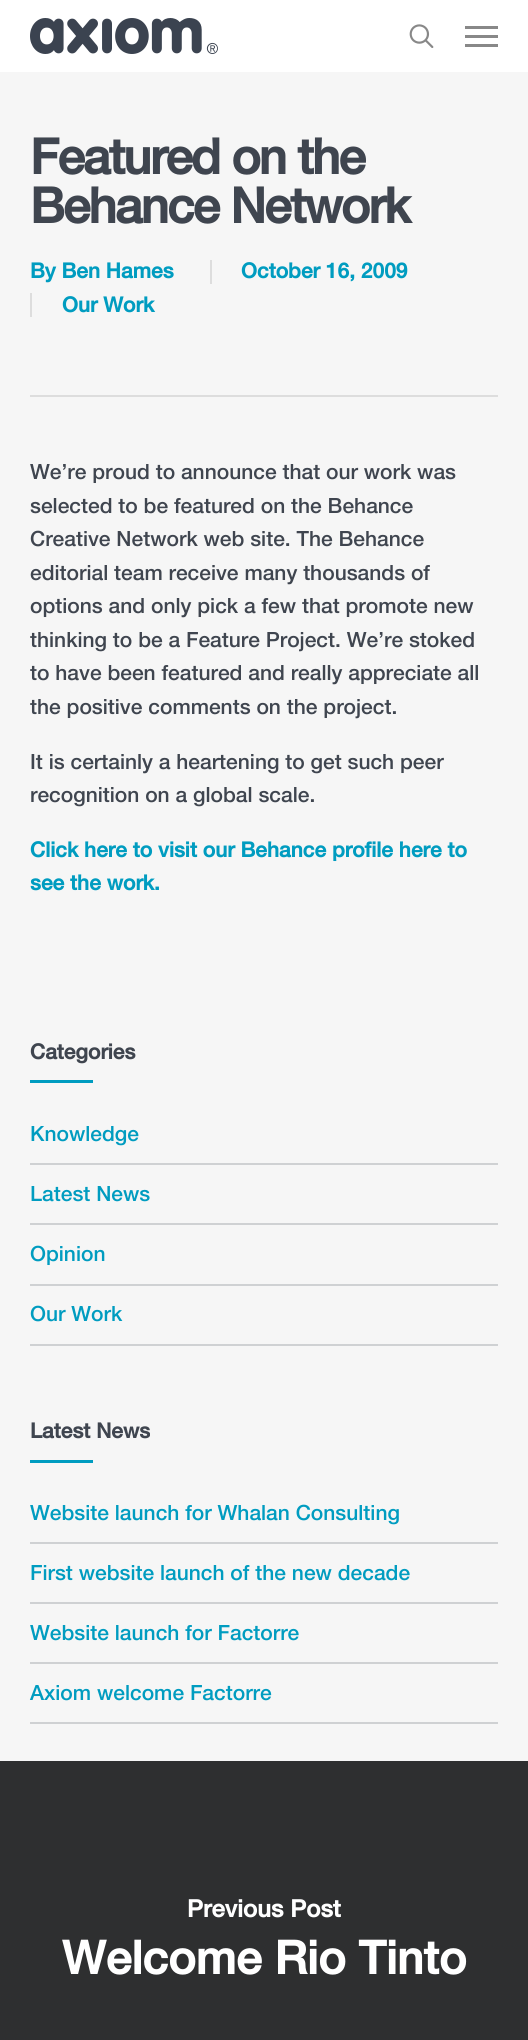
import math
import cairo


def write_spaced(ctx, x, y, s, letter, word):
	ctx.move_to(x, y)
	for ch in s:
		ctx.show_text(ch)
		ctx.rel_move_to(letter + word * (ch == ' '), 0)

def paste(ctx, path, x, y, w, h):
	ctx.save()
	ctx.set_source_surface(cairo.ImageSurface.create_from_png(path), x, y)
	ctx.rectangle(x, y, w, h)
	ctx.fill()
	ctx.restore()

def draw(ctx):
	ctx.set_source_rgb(0.961, 0.961, 0.961)
	ctx.paint()
	ctx.set_source_rgb(1, 1, 1)
	ctx.rectangle(0, 0, 528, 72)
	ctx.fill()
	paste(ctx, 'media/1.png', 30, 18, 188, 36)
	paste(ctx, 'media/2.png', 409, 24, 25, 24)
	ctx.set_source_rgb(0.533, 0.533, 0.533)
	ctx.rectangle(465, 26, 33, 3)
	ctx.rectangle(465, 44, 33, 3)
	ctx.rectangle(465, 35, 33, 3)
	ctx.fill()
	ctx.set_source_rgb(0.867, 0.867, 0.867)
	ctx.rectangle(30, 395, 468, 2)
	ctx.fill()
	ctx.select_font_face('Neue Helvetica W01', cairo.FONT_SLANT_NORMAL, cairo.FONT_WEIGHT_BOLD)
	ctx.set_font_size(49.25)
	ctx.set_source_rgb(0.247, 0.271, 0.31)
	write_spaced(ctx, 30, 174, 'Featured on the', -1.75, 0)
	write_spaced(ctx, 30, 223, 'Behance Network', -1.75, 0)
	ctx.set_font_size(21)
	ctx.set_source_rgb(0, 0.612, 0.753)
	ctx.move_to(30, 278)
	ctx.show_text('By Ben Hames')
	ctx.move_to(241, 278)
	ctx.show_text('October 16, 2009')
	ctx.set_source_rgb(0.867, 0.867, 0.867)
	ctx.rectangle(210, 260, 2, 24)
	ctx.fill()
	ctx.set_source_rgb(0, 0.612, 0.753)
	ctx.move_to(62, 312)
	ctx.show_text('Our Work')
	ctx.set_source_rgb(0.867, 0.867, 0.867)
	ctx.rectangle(30, 293, 2, 24)
	ctx.fill()
	ctx.select_font_face('Neue Helvetica W01 Medium')
	ctx.set_source_rgb(0.247, 0.271, 0.31)
	for x, y, s in [
		(30, 479, 'We’re proud to announce that our work was'),
		(30, 513, 'selected to be featured on the Behance'),
		(30, 546, 'Creative Network web site. The Behance'),
		(30, 580, 'editorial team receive many thousands of'),
		(30, 613, 'options and only pick a few that promote new'),
		(30, 647, 'thinking to be a Feature Project. We’re stoked'),
		(30, 680, 'to have been featured and really appreciate all'),
		(30, 714, 'the positive comments on the project.'),
		(30, 769, 'It is certainly a heartening to get such peer'),
		(30, 802, 'recognition on a global scale.'),
	]:
		ctx.move_to(x, y)
		ctx.show_text(s)
	ctx.select_font_face('Neue Helvetica W01', cairo.FONT_SLANT_NORMAL, cairo.FONT_WEIGHT_BOLD)
	ctx.set_source_rgb(0, 0.612, 0.753)
	ctx.move_to(30, 857)
	ctx.show_text('Click here to visit our Behance profile here to')
	ctx.move_to(30, 890)
	ctx.show_text('see the work.')
	ctx.set_source_rgb(0.247, 0.271, 0.31)
	ctx.move_to(30, 1059)
	ctx.show_text('Categories')
	ctx.set_source_rgb(0, 0.612, 0.753)
	ctx.rectangle(30, 1080, 63, 3)
	ctx.fill()
	ctx.set_source_rgb(0.812, 0.82, 0.827)
	ctx.rectangle(30, 1163, 468, 2)
	ctx.fill()
	ctx.select_font_face('Neue Helvetica W01 Medium')
	ctx.set_source_rgb(0, 0.612, 0.753)
	ctx.move_to(30, 1141)
	ctx.show_text('Knowledge')
	ctx.set_source_rgb(0.812, 0.82, 0.827)
	ctx.rectangle(30, 1223, 468, 2)
	ctx.fill()
	ctx.set_source_rgb(0, 0.612, 0.753)
	ctx.move_to(30, 1201)
	ctx.show_text('Latest News')
	ctx.set_source_rgb(0.812, 0.82, 0.827)
	ctx.rectangle(30, 1284, 468, 2)
	ctx.fill()
	ctx.set_source_rgb(0, 0.612, 0.753)
	ctx.move_to(30, 1261)
	ctx.show_text('Opinion')
	ctx.set_source_rgb(0.812, 0.82, 0.827)
	ctx.rectangle(30, 1344, 468, 2)
	ctx.fill()
	ctx.set_source_rgb(0, 0.612, 0.753)
	ctx.move_to(30, 1321)
	ctx.show_text('Our Work')
	ctx.select_font_face('Neue Helvetica W01', cairo.FONT_SLANT_NORMAL, cairo.FONT_WEIGHT_BOLD)
	ctx.set_source_rgb(0.247, 0.271, 0.31)
	ctx.move_to(30, 1438)
	ctx.show_text('Latest News')
	ctx.set_source_rgb(0, 0.612, 0.753)
	ctx.rectangle(30, 1460, 63, 3)
	ctx.fill()
	ctx.set_source_rgb(0.812, 0.82, 0.827)
	ctx.rectangle(30, 1542, 468, 2)
	ctx.fill()
	ctx.select_font_face('Neue Helvetica W01 Medium')
	ctx.set_source_rgb(0, 0.612, 0.753)
	ctx.move_to(30, 1520)
	ctx.show_text('Website launch for Whalan Consulting')
	ctx.set_source_rgb(0.812, 0.82, 0.827)
	ctx.rectangle(30, 1602, 468, 2)
	ctx.fill()
	ctx.set_source_rgb(0, 0.612, 0.753)
	ctx.move_to(30, 1580)
	ctx.show_text('First website launch of the new decade')
	ctx.set_source_rgb(0.812, 0.82, 0.827)
	ctx.rectangle(30, 1662, 468, 2)
	ctx.fill()
	ctx.set_source_rgb(0, 0.612, 0.753)
	ctx.move_to(30, 1640)
	ctx.show_text('Website launch for Factorre')
	ctx.set_source_rgb(0.812, 0.82, 0.827)
	ctx.rectangle(30, 1722, 468, 2)
	ctx.fill()
	ctx.set_source_rgb(0, 0.612, 0.753)
	ctx.move_to(30, 1700)
	ctx.show_text('Axiom welcome Factorre')
	ctx.set_source_rgb(0.18, 0.184, 0.188)
	ctx.rectangle(0, 1761, 528, 279)
	ctx.fill()
	ctx.select_font_face('Neue Helvetica W01', cairo.FONT_SLANT_NORMAL, cairo.FONT_WEIGHT_BOLD)
	ctx.set_font_size(24)
	ctx.set_source_rgb(1, 1, 1)
	ctx.move_to(187, 1917)
	ctx.show_text('Previous Post')
	ctx.set_font_size(46.25)
	ctx.move_to(62, 1974)
	ctx.show_text('Welcome Rio Tinto')


surface = cairo.ImageSurface(cairo.FORMAT_RGB24, 528, 2040)
ctx = cairo.Context(surface)
options = cairo.FontOptions()
options.set_hint_metrics(cairo.HINT_METRICS_OFF)
options.set_hint_style(cairo.HINT_STYLE_NONE)
ctx.set_font_options(options)
ctx.set_miter_limit(4)
draw(ctx)
surface.write_to_png('image.png')
